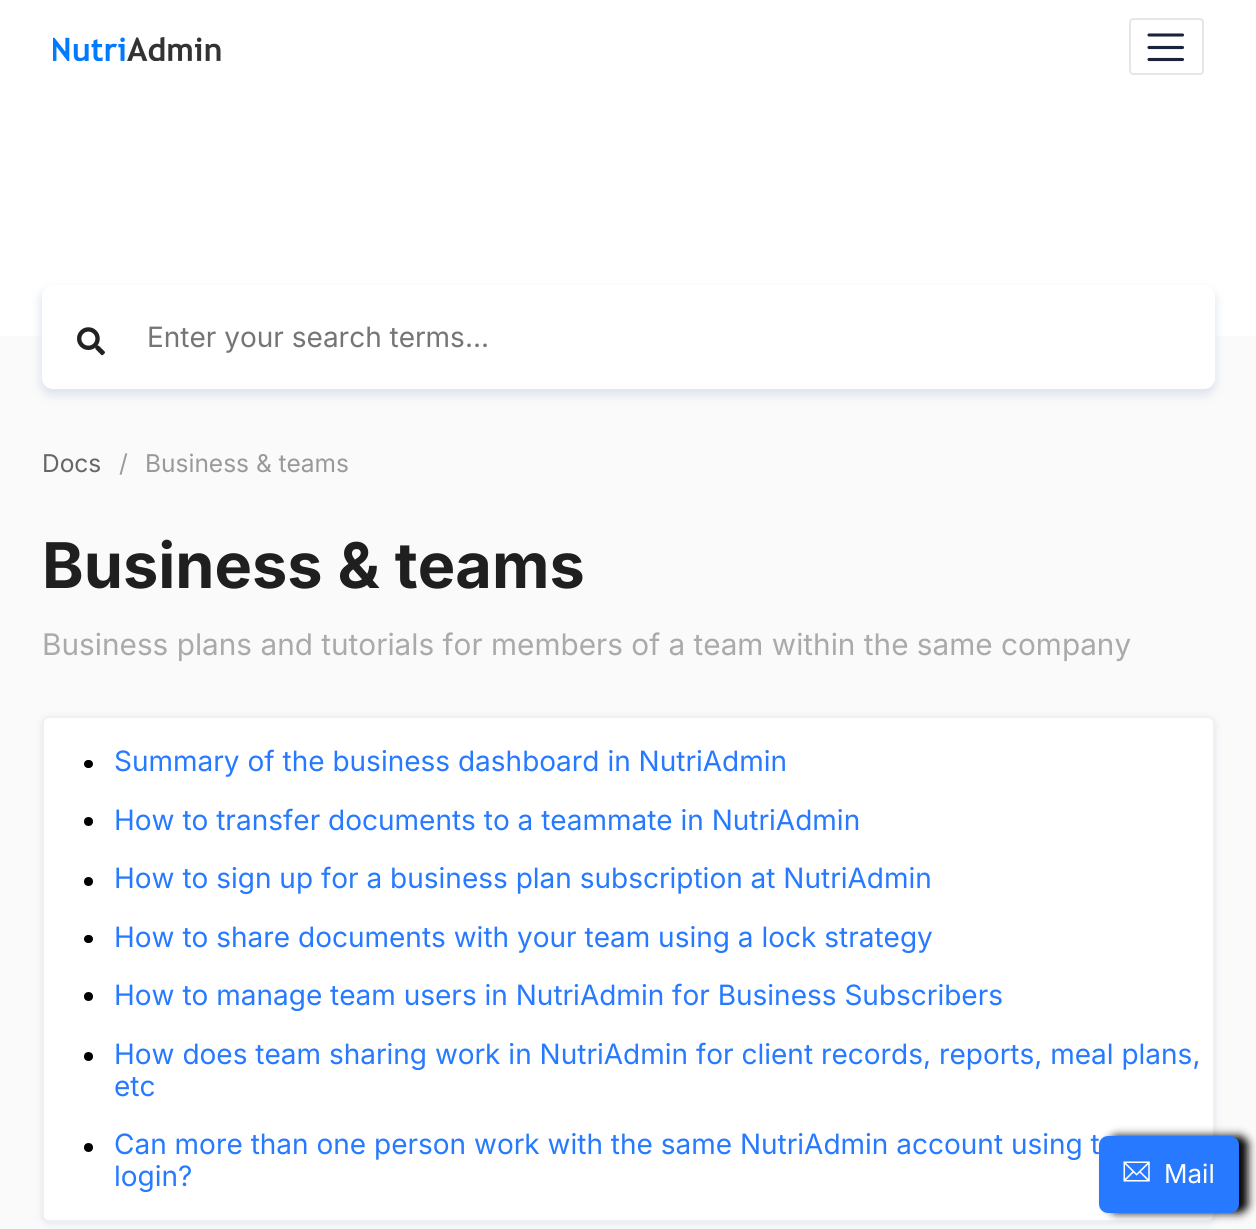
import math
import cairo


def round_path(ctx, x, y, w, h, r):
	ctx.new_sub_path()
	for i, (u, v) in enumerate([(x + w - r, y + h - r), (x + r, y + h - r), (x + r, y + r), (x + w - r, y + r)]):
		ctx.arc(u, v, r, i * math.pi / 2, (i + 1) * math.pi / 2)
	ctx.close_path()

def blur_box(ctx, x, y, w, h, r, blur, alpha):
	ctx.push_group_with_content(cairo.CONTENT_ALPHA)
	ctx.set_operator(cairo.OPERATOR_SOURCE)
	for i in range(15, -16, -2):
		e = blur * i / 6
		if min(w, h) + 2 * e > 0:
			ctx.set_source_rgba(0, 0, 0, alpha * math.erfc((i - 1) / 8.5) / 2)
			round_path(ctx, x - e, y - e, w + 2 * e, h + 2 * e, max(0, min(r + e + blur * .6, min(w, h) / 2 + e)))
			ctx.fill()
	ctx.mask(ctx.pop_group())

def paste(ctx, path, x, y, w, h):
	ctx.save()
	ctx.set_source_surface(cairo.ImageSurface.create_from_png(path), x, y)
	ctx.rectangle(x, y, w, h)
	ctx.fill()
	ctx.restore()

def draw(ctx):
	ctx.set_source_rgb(0.98, 0.98, 0.98)
	ctx.paint()
	ctx.set_source_rgb(1, 1, 1)
	ctx.rectangle(0, 0, 1256, 336)
	ctx.fill()
	paste(ctx, 'media/1.png', 53, 37, 168, 24)
	round_path(ctx, 1130, 19, 73, 55, 3)
	ctx.set_source_rgb(0.902, 0.902, 0.902)
	ctx.stroke()
	ctx.new_path()
	ctx.move_to(1149, 35)
	ctx.line_to(1182.5, 35)
	ctx.move_to(1149, 47.5)
	ctx.line_to(1182.5, 47.5)
	ctx.move_to(1149, 59.5)
	ctx.line_to(1182.5, 59.5)
	ctx.set_source_rgb(0.11, 0.133, 0.227)
	ctx.set_line_width(3.1)
	ctx.set_line_cap(cairo.LINE_CAP_ROUND)
	ctx.stroke()
	ctx.set_source_rgb(0.875, 0.898, 0.933)
	blur_box(ctx, 40, 289, 1176, 107, 12, 4.5, 1)
	ctx.set_source_rgb(1, 1, 1)
	round_path(ctx, 42, 285, 1173, 104, 11)
	ctx.fill()
	paste(ctx, 'media/2.png', 77, 327, 28, 29)
	ctx.select_font_face('Inter')
	ctx.set_font_size(28)
	ctx.set_source_rgb(0.459, 0.459, 0.459)
	ctx.move_to(147, 347)
	ctx.show_text('Enter your search terms...')
	ctx.set_font_size(24.5)
	ctx.set_source_rgb(0.4, 0.4, 0.4)
	ctx.move_to(42, 472)
	ctx.show_text('Docs')
	ctx.set_source_rgb(0.6, 0.6, 0.6)
	ctx.move_to(119, 472)
	ctx.show_text('/')
	ctx.move_to(145, 472)
	ctx.show_text('Business & teams')
	ctx.select_font_face('Inter', cairo.FONT_SLANT_NORMAL, cairo.FONT_WEIGHT_BOLD)
	ctx.set_font_size(63)
	ctx.set_source_rgb(0.122, 0.122, 0.122)
	ctx.move_to(42, 588)
	ctx.show_text('Business & teams')
	ctx.select_font_face('Inter')
	ctx.set_font_size(29.75)
	ctx.set_source_rgb(0.667, 0.667, 0.667)
	ctx.move_to(42, 655)
	ctx.show_text('Business plans and tutorials for members of a team within the same company')
	ctx.set_source_rgb(0.875, 0.898, 0.933)
	blur_box(ctx, 42, 718, 1173, 505, 7, 3.5, 1)
	ctx.set_source_rgb(1, 1, 1)
	round_path(ctx, 43, 717, 1171, 504, 6)
	ctx.fill_preserve()
	ctx.set_source_rgb(0.941, 0.941, 0.941)
	ctx.set_line_width(2)
	ctx.set_line_cap(cairo.LINE_CAP_BUTT)
	ctx.stroke()
	ctx.set_source_rgb(0, 0, 0)
	round_path(ctx, 84, 760, 9, 8, 4)
	ctx.fill()
	ctx.set_font_size(28)
	ctx.set_source_rgb(0.153, 0.478, 1)
	ctx.move_to(114, 771)
	ctx.show_text('Summary of the business dashboard in NutriAdmin')
	ctx.set_source_rgb(0, 0, 0)
	ctx.new_path()
	ctx.arc(88.5, 821.5, 4.5, 0, 2 * math.pi)
	ctx.fill()
	ctx.set_source_rgb(0.153, 0.478, 1)
	ctx.move_to(114, 830)
	ctx.show_text('How to transfer documents to a teammate in NutriAdmin')
	ctx.set_source_rgb(0, 0, 0)
	ctx.new_path()
	ctx.arc(88.5, 881.5, 4.5, 0, 2 * math.pi)
	ctx.fill()
	ctx.set_source_rgb(0.153, 0.478, 1)
	ctx.move_to(114, 888)
	ctx.show_text('How to sign up for a business plan subscription at NutriAdmin')
	ctx.set_source_rgb(0, 0, 0)
	round_path(ctx, 84, 935, 9, 8, 4)
	ctx.fill()
	ctx.set_source_rgb(0.153, 0.478, 1)
	ctx.move_to(114, 947)
	ctx.show_text('How to share documents with your team using a lock strategy')
	ctx.set_source_rgb(0, 0, 0)
	ctx.new_path()
	ctx.arc(88.5, 996.5, 4.5, 0, 2 * math.pi)
	ctx.fill()
	ctx.set_source_rgb(0.153, 0.478, 1)
	ctx.move_to(114, 1005)
	ctx.show_text('How to manage team users in NutriAdmin for Business Subscribers')
	ctx.set_source_rgb(0, 0, 0)
	ctx.new_path()
	ctx.arc(88.5, 1056.5, 4.5, 0, 2 * math.pi)
	ctx.fill()
	ctx.set_source_rgb(0.153, 0.478, 1)
	ctx.move_to(114, 1064)
	ctx.show_text('How does team sharing work in NutriAdmin for client records, reports, meal plans,')
	ctx.move_to(114, 1096)
	ctx.show_text('etc')
	ctx.set_source_rgb(0, 0, 0)
	ctx.new_path()
	ctx.arc(88.5, 1147.5, 4.5, 0, 2 * math.pi)
	ctx.fill()
	ctx.set_source_rgb(0.153, 0.478, 1)
	ctx.move_to(114, 1154)
	ctx.show_text('Can more than one person work with the same NutriAdmin account using t')
	ctx.move_to(114, 1186)
	ctx.show_text('login?')
	ctx.set_source_rgb(0.004, 0.004, 0.004)
	blur_box(ctx, 1108, 1136, 140, 77, 9, 4.5, 1)
	ctx.set_source_rgb(0.153, 0.478, 1)
	round_path(ctx, 1099, 1136, 140, 77, 9)
	ctx.fill()
	paste(ctx, 'media/3.png', 1123, 1161, 27, 21)
	ctx.set_font_size(26)
	ctx.set_source_rgb(1, 1, 1)
	ctx.move_to(1164, 1183)
	ctx.show_text('Mail')


surface = cairo.ImageSurface(cairo.FORMAT_RGB24, 1256, 1229)
ctx = cairo.Context(surface)
options = cairo.FontOptions()
options.set_hint_metrics(cairo.HINT_METRICS_OFF)
options.set_hint_style(cairo.HINT_STYLE_NONE)
ctx.set_font_options(options)
ctx.set_miter_limit(4)
draw(ctx)
surface.write_to_png('image.png')
